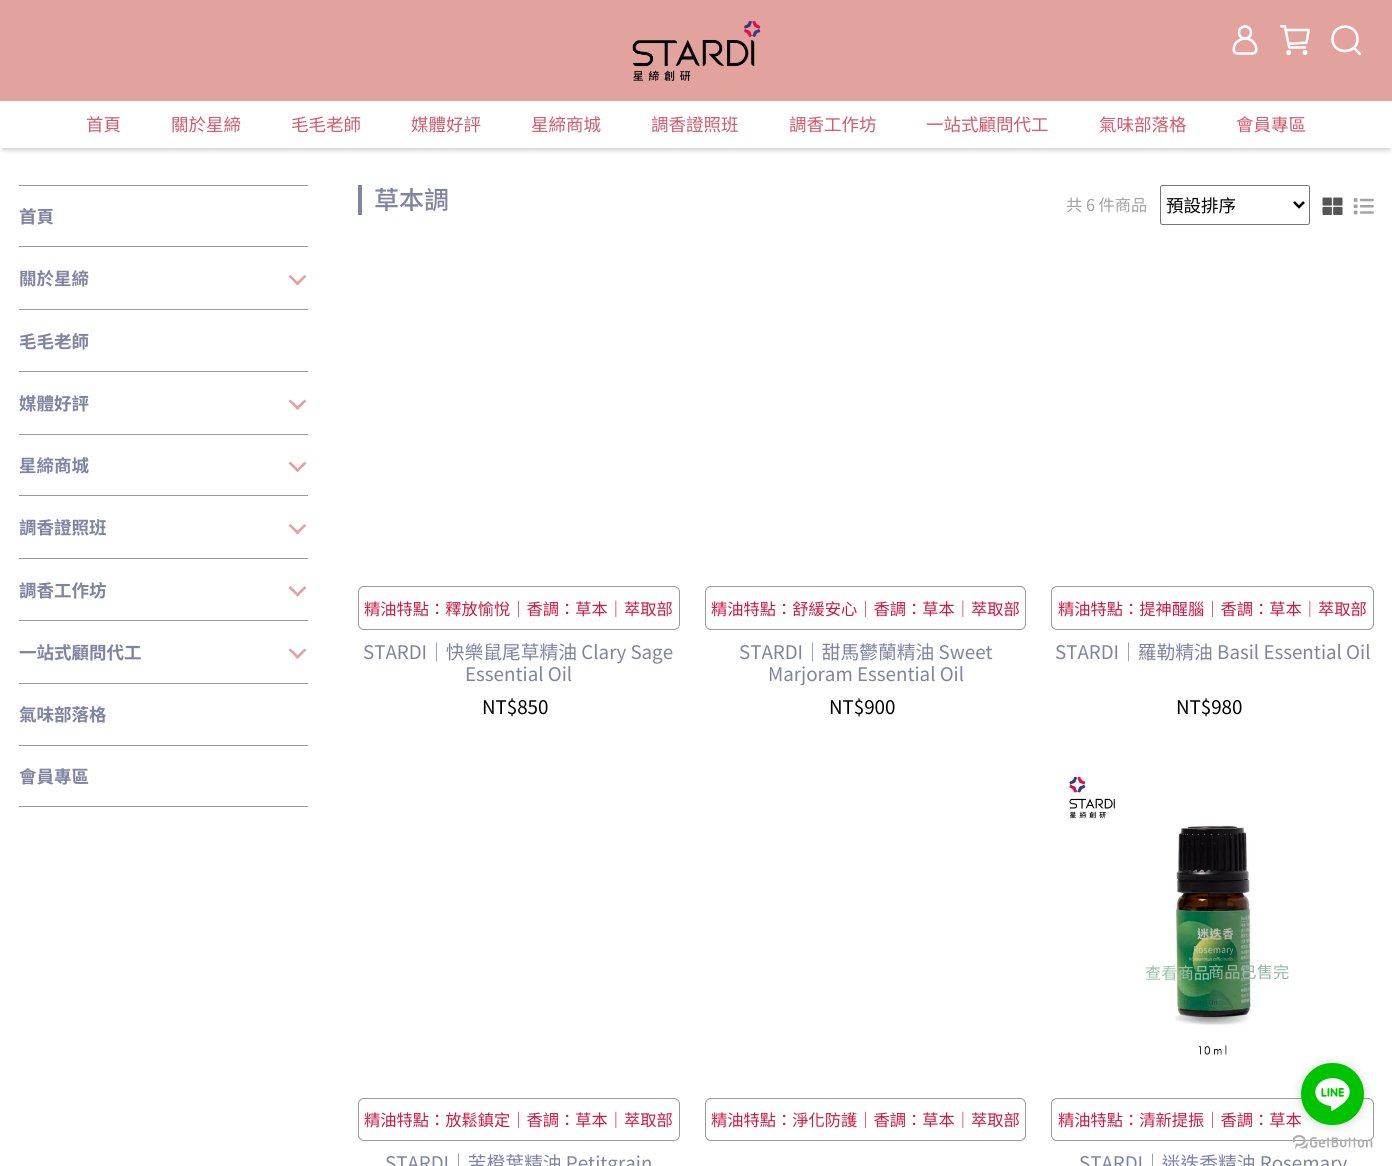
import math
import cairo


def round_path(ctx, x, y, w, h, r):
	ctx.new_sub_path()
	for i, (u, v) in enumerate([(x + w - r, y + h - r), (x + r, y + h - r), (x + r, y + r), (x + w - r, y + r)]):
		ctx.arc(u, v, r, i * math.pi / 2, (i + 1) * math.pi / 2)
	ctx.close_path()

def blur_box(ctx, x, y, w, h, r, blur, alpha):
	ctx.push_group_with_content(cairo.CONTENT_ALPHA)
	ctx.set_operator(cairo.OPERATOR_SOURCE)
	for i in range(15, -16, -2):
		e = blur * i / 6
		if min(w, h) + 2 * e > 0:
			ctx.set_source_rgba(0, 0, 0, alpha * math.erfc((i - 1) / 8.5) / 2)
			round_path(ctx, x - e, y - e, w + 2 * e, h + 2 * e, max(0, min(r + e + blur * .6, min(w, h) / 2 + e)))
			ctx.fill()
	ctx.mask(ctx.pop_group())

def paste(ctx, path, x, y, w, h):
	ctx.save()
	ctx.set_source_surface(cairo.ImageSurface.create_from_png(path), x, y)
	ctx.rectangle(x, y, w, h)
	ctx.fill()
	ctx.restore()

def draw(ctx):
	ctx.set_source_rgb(1, 1, 1)
	ctx.paint()
	ctx.set_source_rgb(0.886, 0.639, 0.624)
	ctx.rectangle(0, 0, 1392, 101)
	ctx.fill()
	paste(ctx, 'media/1.png', 632, 21, 129, 60)
	ctx.arc(1245, 32.5, 6, 0, 2 * math.pi)
	ctx.set_source_rgb(1, 1, 1)
	ctx.set_line_width(2.5)
	ctx.stroke()
	ctx.new_path()
	ctx.move_to(1252, 53.5)
	ctx.line_to(1242.5, 53.5)
	ctx.curve_to(1237, 53.5, 1232.5, 54, 1234, 47)
	ctx.curve_to(1234.5, 43.5, 1237.5, 41, 1240.5, 39.5)
	ctx.curve_to(1255, 34, 1261, 54, 1252, 53.5)
	ctx.close_path()
	ctx.stroke()
	paste(ctx, 'media/2.png', 1280, 25, 30, 30)
	ctx.new_path()
	ctx.move_to(1357.5, 39)
	ctx.curve_to(1357.5, 55, 1332.5, 55, 1332.5, 39)
	ctx.curve_to(1332.5, 22.5, 1357.5, 22.5, 1357.5, 39)
	ctx.close_path()
	ctx.move_to(1355, 49)
	ctx.line_to(1360, 54)
	ctx.set_line_cap(cairo.LINE_CAP_ROUND)
	ctx.set_line_join(cairo.LINE_JOIN_ROUND)
	ctx.stroke()
	ctx.set_source_rgb(0, 0, 0)
	blur_box(ctx, 3, 109, 1387, 41, 0, 2.5, 0.2)
	ctx.set_source_rgb(1, 1, 1)
	ctx.rectangle(0, 105, 1392, 43)
	ctx.fill()
	ctx.select_font_face('Noto Sans TC')
	ctx.set_font_size(17.5)
	ctx.set_source_rgb(0.816, 0.353, 0.431)
	for x, y, s in [
		(86, 131, '首頁'),
		(171, 131, '關於星締'),
		(291, 131, '毛毛老師'),
		(411, 131, '媒體好評'),
		(531, 131, '星締商城'),
		(651, 131, '調香證照班'),
		(789, 131, '調香工作坊'),
		(926, 131, '一站式顧問代工'),
		(1099, 131, '氣味部落格'),
		(1236, 131, '會員專區'),
	]:
		ctx.move_to(x, y)
		ctx.show_text(s)
	ctx.set_source_rgb(0.604, 0.604, 0.604)
	ctx.rectangle(19, 185, 289, 1)
	ctx.fill()
	ctx.rectangle(19, 246, 289, 1)
	ctx.fill()
	ctx.select_font_face('Noto Sans TC', cairo.FONT_SLANT_NORMAL, cairo.FONT_WEIGHT_BOLD)
	ctx.set_source_rgb(0.498, 0.518, 0.627)
	ctx.move_to(19, 223)
	ctx.show_text('首頁')
	ctx.set_source_rgb(0.604, 0.604, 0.604)
	ctx.rectangle(19, 309, 289, 1)
	ctx.fill()
	ctx.set_source_rgb(0.498, 0.518, 0.627)
	ctx.move_to(19, 285)
	ctx.show_text('關於星締')
	ctx.set_source_rgb(0.886, 0.639, 0.624)
	ctx.new_path()
	ctx.move_to(295.5, 283.5)
	ctx.line_to(304.5, 275)
	ctx.line_to(306.5, 276.5)
	ctx.line_to(297.5, 285.5)
	ctx.close_path()
	ctx.fill()
	ctx.new_path()
	ctx.move_to(288.5, 276.5)
	ctx.line_to(290.5, 275)
	ctx.line_to(299.5, 283.5)
	ctx.line_to(297.5, 285.5)
	ctx.close_path()
	ctx.fill()
	ctx.set_source_rgb(0.604, 0.604, 0.604)
	ctx.rectangle(19, 371, 289, 1)
	ctx.fill()
	ctx.set_source_rgb(0.498, 0.518, 0.627)
	ctx.move_to(19, 348)
	ctx.show_text('毛毛老師')
	ctx.set_source_rgb(0.604, 0.604, 0.604)
	ctx.rectangle(19, 434, 289, 1)
	ctx.fill()
	ctx.set_source_rgb(0.498, 0.518, 0.627)
	ctx.move_to(19, 410)
	ctx.show_text('媒體好評')
	ctx.set_source_rgb(0.886, 0.639, 0.624)
	ctx.new_path()
	ctx.move_to(295.5, 408)
	ctx.line_to(304.5, 399.5)
	ctx.line_to(306.5, 401)
	ctx.line_to(297.5, 410)
	ctx.close_path()
	ctx.fill()
	ctx.new_path()
	ctx.move_to(288.5, 401)
	ctx.line_to(290.5, 399.5)
	ctx.line_to(299.5, 408)
	ctx.line_to(297.5, 410)
	ctx.close_path()
	ctx.fill()
	ctx.set_source_rgb(0.604, 0.604, 0.604)
	ctx.rectangle(19, 495, 289, 1)
	ctx.fill()
	ctx.set_source_rgb(0.498, 0.518, 0.627)
	ctx.move_to(19, 472)
	ctx.show_text('星締商城')
	ctx.set_source_rgb(0.886, 0.639, 0.624)
	ctx.new_path()
	ctx.move_to(295.5, 470.5)
	ctx.line_to(304.5, 461.5)
	ctx.line_to(306.5, 463.5)
	ctx.line_to(297.5, 472)
	ctx.close_path()
	ctx.fill()
	ctx.new_path()
	ctx.move_to(288.5, 463.5)
	ctx.line_to(290.5, 461.5)
	ctx.line_to(299.5, 470.5)
	ctx.line_to(297.5, 472)
	ctx.close_path()
	ctx.fill()
	ctx.set_source_rgb(0.604, 0.604, 0.604)
	ctx.rectangle(19, 558, 289, 1)
	ctx.fill()
	ctx.set_source_rgb(0.498, 0.518, 0.627)
	ctx.move_to(19, 534)
	ctx.show_text('調香證照班')
	ctx.set_source_rgb(0.886, 0.639, 0.624)
	ctx.new_path()
	ctx.move_to(295.5, 532.5)
	ctx.line_to(304.5, 524)
	ctx.line_to(306.5, 525.5)
	ctx.line_to(297.5, 534.5)
	ctx.close_path()
	ctx.fill()
	ctx.new_path()
	ctx.move_to(288.5, 525.5)
	ctx.line_to(290.5, 524)
	ctx.line_to(299.5, 532.5)
	ctx.line_to(297.5, 534.5)
	ctx.close_path()
	ctx.fill()
	ctx.set_source_rgb(0.604, 0.604, 0.604)
	ctx.rectangle(19, 620, 289, 1)
	ctx.fill()
	ctx.set_source_rgb(0.498, 0.518, 0.627)
	ctx.move_to(19, 597)
	ctx.show_text('調香工作坊')
	ctx.set_source_rgb(0.886, 0.639, 0.624)
	ctx.new_path()
	ctx.move_to(295.5, 595)
	ctx.line_to(304.5, 586)
	ctx.line_to(306.5, 588)
	ctx.line_to(297.5, 596.5)
	ctx.close_path()
	ctx.fill()
	ctx.new_path()
	ctx.move_to(288.5, 588)
	ctx.line_to(290.5, 586)
	ctx.line_to(299.5, 595)
	ctx.line_to(297.5, 596.5)
	ctx.close_path()
	ctx.fill()
	ctx.set_source_rgb(0.604, 0.604, 0.604)
	ctx.rectangle(19, 683, 289, 1)
	ctx.fill()
	ctx.set_source_rgb(0.498, 0.518, 0.627)
	ctx.move_to(19, 659)
	ctx.show_text('一站式顧問代工')
	ctx.set_source_rgb(0.886, 0.639, 0.624)
	ctx.new_path()
	ctx.move_to(295.5, 657)
	ctx.line_to(304.5, 648.5)
	ctx.line_to(306.5, 650)
	ctx.line_to(297.5, 659)
	ctx.close_path()
	ctx.fill()
	ctx.new_path()
	ctx.move_to(288.5, 650)
	ctx.line_to(290.5, 648.5)
	ctx.line_to(299.5, 657)
	ctx.line_to(297.5, 659)
	ctx.close_path()
	ctx.fill()
	ctx.set_source_rgb(0.604, 0.604, 0.604)
	ctx.rectangle(19, 745, 289, 1)
	ctx.fill()
	ctx.set_source_rgb(0.498, 0.518, 0.627)
	ctx.move_to(19, 721)
	ctx.show_text('氣味部落格')
	ctx.set_source_rgb(0.604, 0.604, 0.604)
	ctx.rectangle(19, 806, 289, 1)
	ctx.fill()
	ctx.set_source_rgb(0.498, 0.518, 0.627)
	ctx.move_to(19, 783)
	ctx.show_text('會員專區')
	ctx.rectangle(358, 185, 4, 30)
	ctx.fill()
	ctx.select_font_face('Noto Sans TC Medium')
	ctx.set_font_size(25)
	ctx.move_to(374, 209)
	ctx.show_text('草本調')
	ctx.select_font_face('Noto Sans TC')
	ctx.set_font_size(16.25)
	ctx.set_source_rgb(0.639, 0.639, 0.639)
	ctx.move_to(1066, 211)
	ctx.show_text('共 6 件商品')
	round_path(ctx, 1160.5, 185.5, 149, 39, 2)
	ctx.set_source_rgb(0.463, 0.463, 0.463)
	ctx.set_line_width(1)
	ctx.set_line_cap(cairo.LINE_CAP_BUTT)
	ctx.set_line_join(cairo.LINE_JOIN_MITER)
	ctx.stroke()
	ctx.new_path()
	ctx.move_to(1294, 202)
	ctx.line_to(1299, 207)
	ctx.line_to(1304, 202)
	ctx.set_source_rgb(0, 0, 0)
	ctx.set_line_width(2.5)
	ctx.stroke()
	ctx.set_font_size(17.5)
	ctx.move_to(1166, 212)
	ctx.show_text('預設排序')
	paste(ctx, 'media/3.png', 1322, 197, 21, 18)
	paste(ctx, 'media/4.png', 1353, 198, 21, 17)
	round_path(ctx, 358.5, 586.5, 321, 43, 5.5)
	ctx.set_source_rgb(0.604, 0.604, 0.604)
	ctx.set_line_width(1)
	ctx.stroke()
	ctx.set_font_size(16.25)
	ctx.set_source_rgb(0.796, 0.106, 0.271)
	ctx.move_to(364, 615)
	ctx.show_text('精油特點：釋放愉悅｜香調：草本｜萃取部')
	ctx.set_font_size(18.75)
	ctx.set_source_rgb(0.498, 0.518, 0.627)
	ctx.move_to(363, 659)
	ctx.show_text('STARDI｜快樂鼠尾草精油 Clary Sage')
	ctx.move_to(465, 681)
	ctx.show_text('Essential Oil')
	ctx.set_source_rgb(0, 0, 0)
	ctx.move_to(482, 714)
	ctx.show_text('NT$850')
	round_path(ctx, 705.5, 586.5, 320, 43, 5.5)
	ctx.set_source_rgb(0.604, 0.604, 0.604)
	ctx.stroke()
	ctx.set_font_size(16.25)
	ctx.set_source_rgb(0.796, 0.106, 0.271)
	ctx.move_to(711, 615)
	ctx.show_text('精油特點：舒緩安心｜香調：草本｜萃取部')
	ctx.set_font_size(18.75)
	ctx.set_source_rgb(0.498, 0.518, 0.627)
	ctx.move_to(739, 659)
	ctx.show_text('STARDI｜甜馬鬱蘭精油 Sweet')
	ctx.save()
	ctx.rectangle(705, 640, 321, 45)
	ctx.clip()
	ctx.move_to(768, 681)
	ctx.show_text('Marjoram Essential Oil')
	ctx.restore()
	ctx.set_source_rgb(0, 0, 0)
	ctx.move_to(829, 714)
	ctx.show_text('NT$900')
	round_path(ctx, 1051.5, 586.5, 322, 43, 5.5)
	ctx.set_source_rgb(0.604, 0.604, 0.604)
	ctx.stroke()
	ctx.set_font_size(16.25)
	ctx.set_source_rgb(0.796, 0.106, 0.271)
	ctx.move_to(1058, 615)
	ctx.show_text('精油特點：提神醒腦｜香調：草本｜萃取部')
	ctx.set_font_size(18.75)
	ctx.set_source_rgb(0.498, 0.518, 0.627)
	ctx.move_to(1055, 659)
	ctx.show_text('STARDI｜羅勒精油 Basil Essential Oil')
	ctx.set_source_rgb(0, 0, 0)
	ctx.move_to(1176, 714)
	ctx.show_text('NT$980')
	round_path(ctx, 358.5, 1098.5, 321, 42, 5.5)
	ctx.set_source_rgb(0.604, 0.604, 0.604)
	ctx.stroke()
	ctx.set_font_size(16.25)
	ctx.set_source_rgb(0.796, 0.106, 0.271)
	ctx.move_to(364, 1126)
	ctx.show_text('精油特點：放鬆鎮定｜香調：草本｜萃取部')
	ctx.set_font_size(18.75)
	ctx.set_source_rgb(0.498, 0.518, 0.627)
	ctx.move_to(385, 1170)
	ctx.show_text('STARDI｜苦橙葉精油 Petitgrain')
	round_path(ctx, 705.5, 1098.5, 320, 42, 5.5)
	ctx.set_source_rgb(0.604, 0.604, 0.604)
	ctx.stroke()
	ctx.set_font_size(16.25)
	ctx.set_source_rgb(0.796, 0.106, 0.271)
	ctx.move_to(711, 1126)
	ctx.show_text('精油特點：淨化防護｜香調：草本｜萃取部')
	paste(ctx, 'media/5.png', 1069, 776, 183, 279)
	ctx.set_source_rgb(0.62, 0.765, 0.667)
	ctx.move_to(1145, 979)
	ctx.show_text('查看商品')
	ctx.set_source_rgb(0.588, 0.722, 0.635)
	ctx.move_to(1208, 978)
	ctx.show_text('商品已售完')
	round_path(ctx, 1051.5, 1098.5, 322, 42, 5.5)
	ctx.set_source_rgb(0.604, 0.604, 0.604)
	ctx.stroke()
	ctx.set_source_rgb(0.796, 0.106, 0.271)
	ctx.move_to(1058, 1126)
	ctx.show_text('精油特點：清新提振｜香調：草本')
	ctx.set_font_size(18.75)
	ctx.set_source_rgb(0.498, 0.518, 0.627)
	ctx.move_to(1079, 1170)
	ctx.show_text('STARDI｜迷迭香精油 Rosemary')
	paste(ctx, 'media/7.png', 1293, 1135, 80, 14)
	ctx.set_source_rgb(0.533, 0.533, 0.533)
	blur_box(ctx, 1301, 1064, 63, 62, 31, 4.5, 0.4)
	ctx.set_source_rgb(0, 0.765, 0)
	round_path(ctx, 1301, 1063, 63, 62, 31)
	ctx.fill()
	paste(ctx, 'media/6.png', 1315, 1078, 35, 33)


surface = cairo.ImageSurface(cairo.FORMAT_RGB24, 1392, 1166)
ctx = cairo.Context(surface)
options = cairo.FontOptions()
options.set_hint_metrics(cairo.HINT_METRICS_OFF)
options.set_hint_style(cairo.HINT_STYLE_NONE)
ctx.set_font_options(options)
ctx.set_miter_limit(4)
draw(ctx)
surface.write_to_png('image.png')
